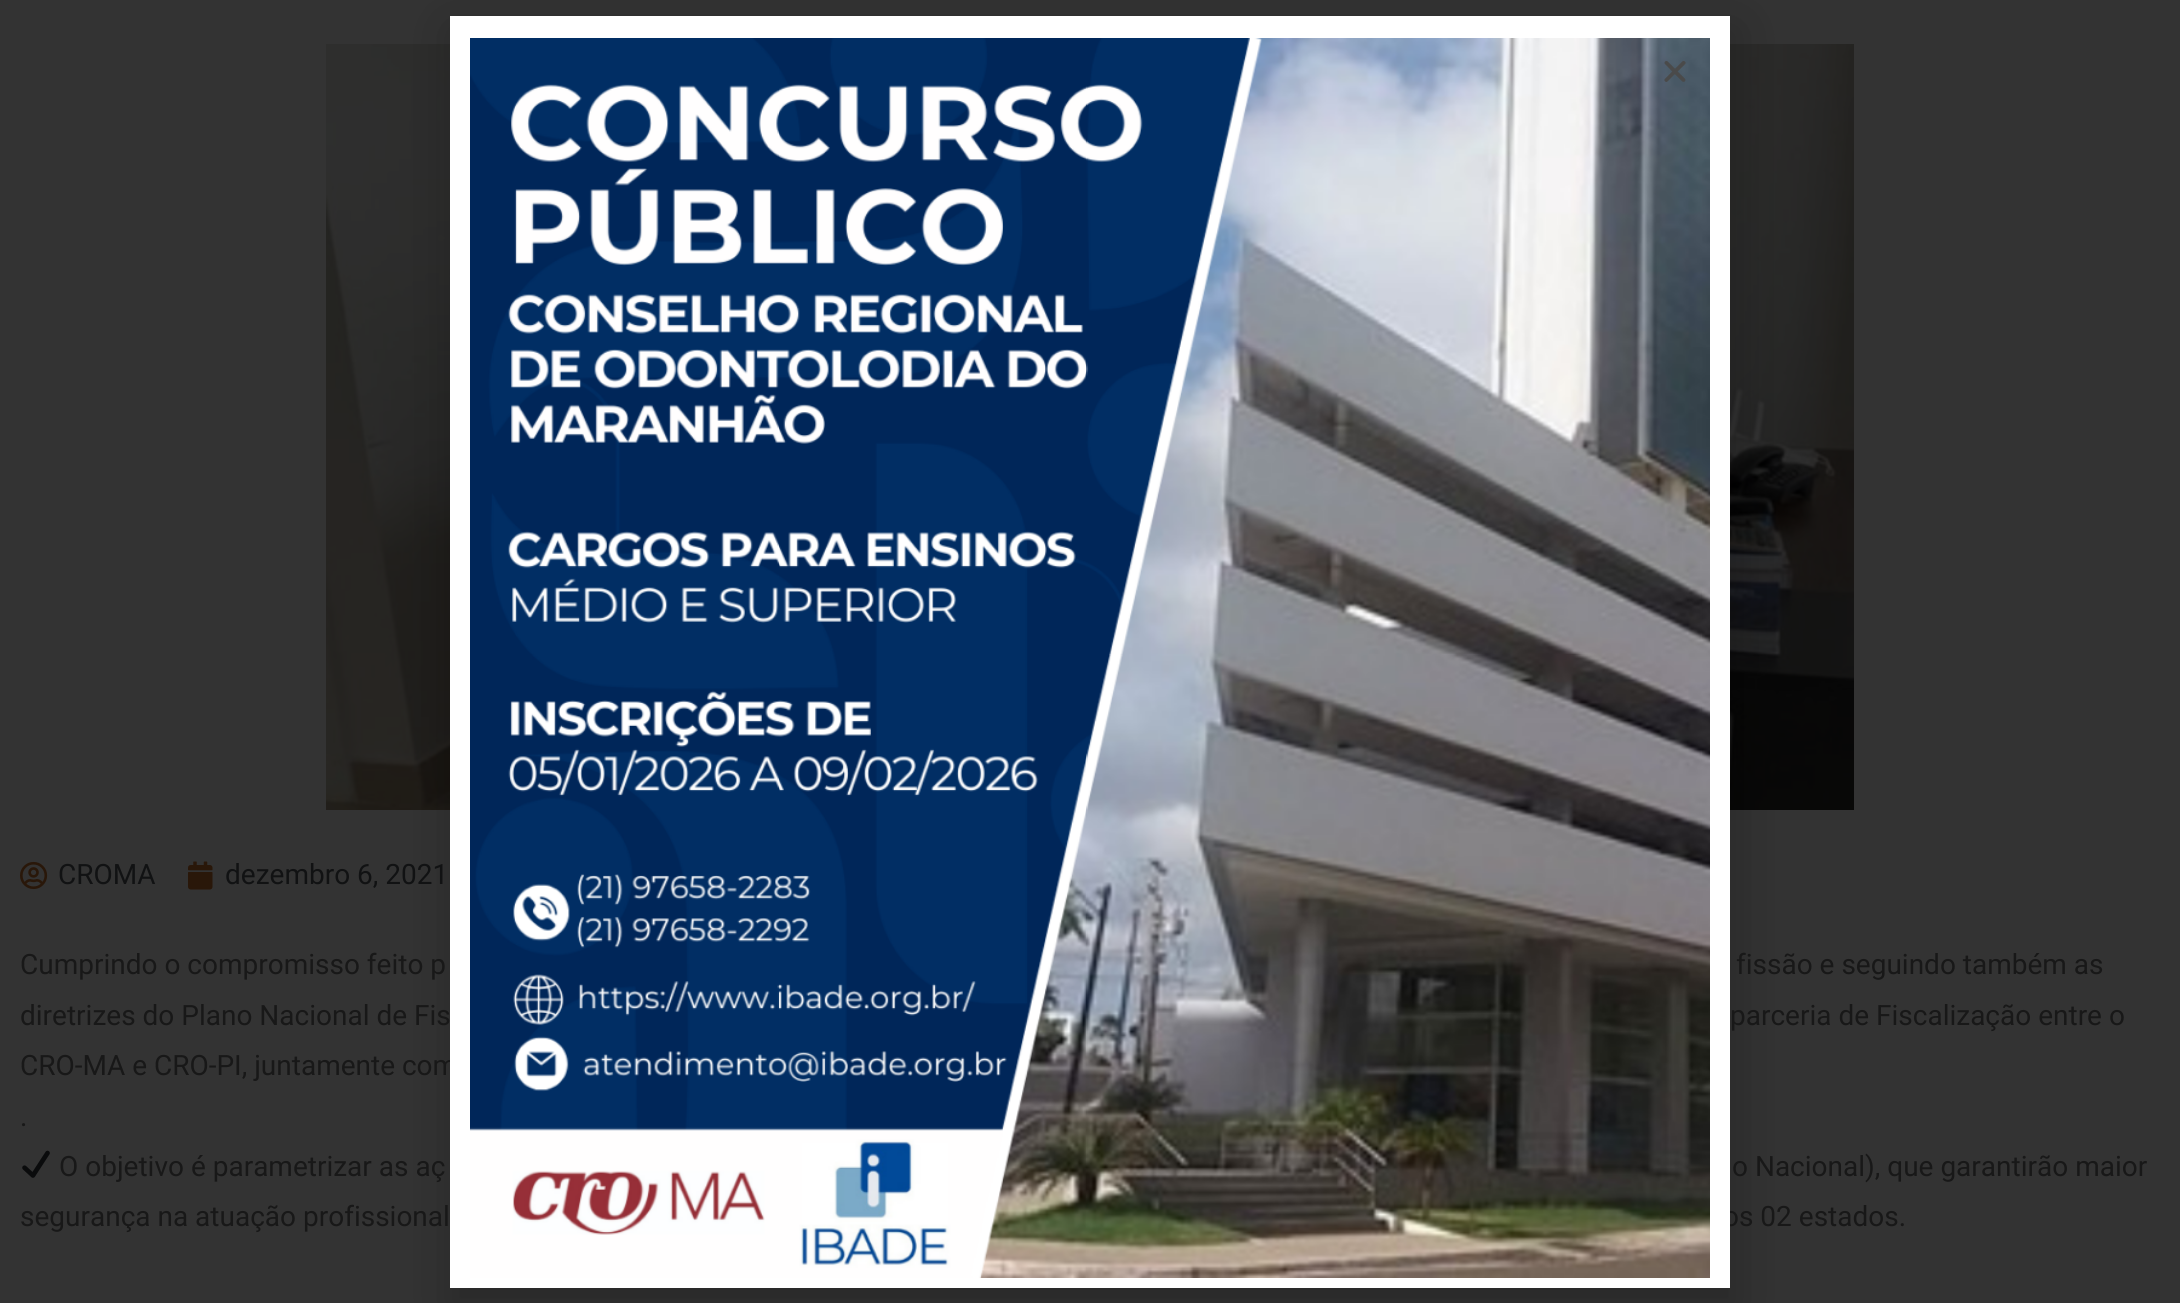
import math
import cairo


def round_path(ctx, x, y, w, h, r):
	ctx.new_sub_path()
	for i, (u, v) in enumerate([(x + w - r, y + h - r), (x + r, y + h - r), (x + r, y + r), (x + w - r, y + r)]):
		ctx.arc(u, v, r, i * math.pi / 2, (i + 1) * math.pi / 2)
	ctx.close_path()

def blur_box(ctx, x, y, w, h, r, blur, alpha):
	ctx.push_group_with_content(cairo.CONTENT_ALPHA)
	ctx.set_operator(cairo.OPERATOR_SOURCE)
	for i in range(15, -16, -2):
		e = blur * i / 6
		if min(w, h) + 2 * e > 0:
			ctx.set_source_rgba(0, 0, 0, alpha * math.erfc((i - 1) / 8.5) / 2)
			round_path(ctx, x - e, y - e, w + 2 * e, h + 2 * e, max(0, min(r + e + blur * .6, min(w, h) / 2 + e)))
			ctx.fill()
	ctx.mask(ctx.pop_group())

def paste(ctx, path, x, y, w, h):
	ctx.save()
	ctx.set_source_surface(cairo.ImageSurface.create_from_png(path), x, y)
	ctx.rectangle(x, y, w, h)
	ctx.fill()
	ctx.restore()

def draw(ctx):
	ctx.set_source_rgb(0.2, 0.2, 0.2)
	ctx.paint()
	paste(ctx, 'media/3.png', 326, 44, 1528, 766)
	ctx.set_source_rgb(0, 0, 0)
	blur_box(ctx, 448, 26, 1292, 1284, 0, 23, 0.2)
	ctx.select_font_face('Roboto')
	ctx.set_font_size(28)
	ctx.set_source_rgb(0.094, 0.094, 0.094)
	ctx.move_to(20, 1075)
	ctx.show_text('CRO-MA e CRO-PI, juntamente com')
	ctx.move_to(1723, 1226)
	ctx.show_text('os 02 estados.')
	ctx.set_source_rgb(1, 1, 1)
	ctx.rectangle(450, 16, 1280, 1272)
	ctx.fill()
	paste(ctx, 'media/1.png', 470, 38, 1240, 1240)
	paste(ctx, 'media/2.png', 1664, 61, 22, 21)
	paste(ctx, 'media/4.png', 20, 861, 28, 29)
	ctx.set_source_rgb(0.067, 0.071, 0.075)
	ctx.move_to(58, 884)
	ctx.show_text('CROMA')
	paste(ctx, 'media/5.png', 188, 861, 25, 29)
	ctx.move_to(225, 884)
	ctx.show_text('dezembro 6, 2021')
	ctx.set_source_rgb(0.094, 0.094, 0.094)
	for x, y, s in [
		(20, 974, 'Cumprindo o compromisso feito p'),
		(1736, 974, 'fissão e seguindo também as'),
		(20, 1025, 'diretrizes do Plano Nacional de Fis'),
		(1730, 1025, 'parceria de Fiscalização entre o'),
		(20, 1126, '.'),
	]:
		ctx.move_to(x, y)
		ctx.show_text(s)
	paste(ctx, 'media/6.png', 22, 1150, 28, 28)
	for x, y, s in [
		(59, 1176, 'O objetivo é parametrizar as aç'),
		(1732, 1176, 'o Nacional), que garantirão maior'),
		(20, 1226, 'segurança na atuação profissional'),
	]:
		ctx.move_to(x, y)
		ctx.show_text(s)


surface = cairo.ImageSurface(cairo.FORMAT_RGB24, 2180, 1303)
ctx = cairo.Context(surface)
options = cairo.FontOptions()
options.set_hint_metrics(cairo.HINT_METRICS_OFF)
options.set_hint_style(cairo.HINT_STYLE_NONE)
ctx.set_font_options(options)
ctx.set_miter_limit(4)
draw(ctx)
surface.write_to_png('image.png')
